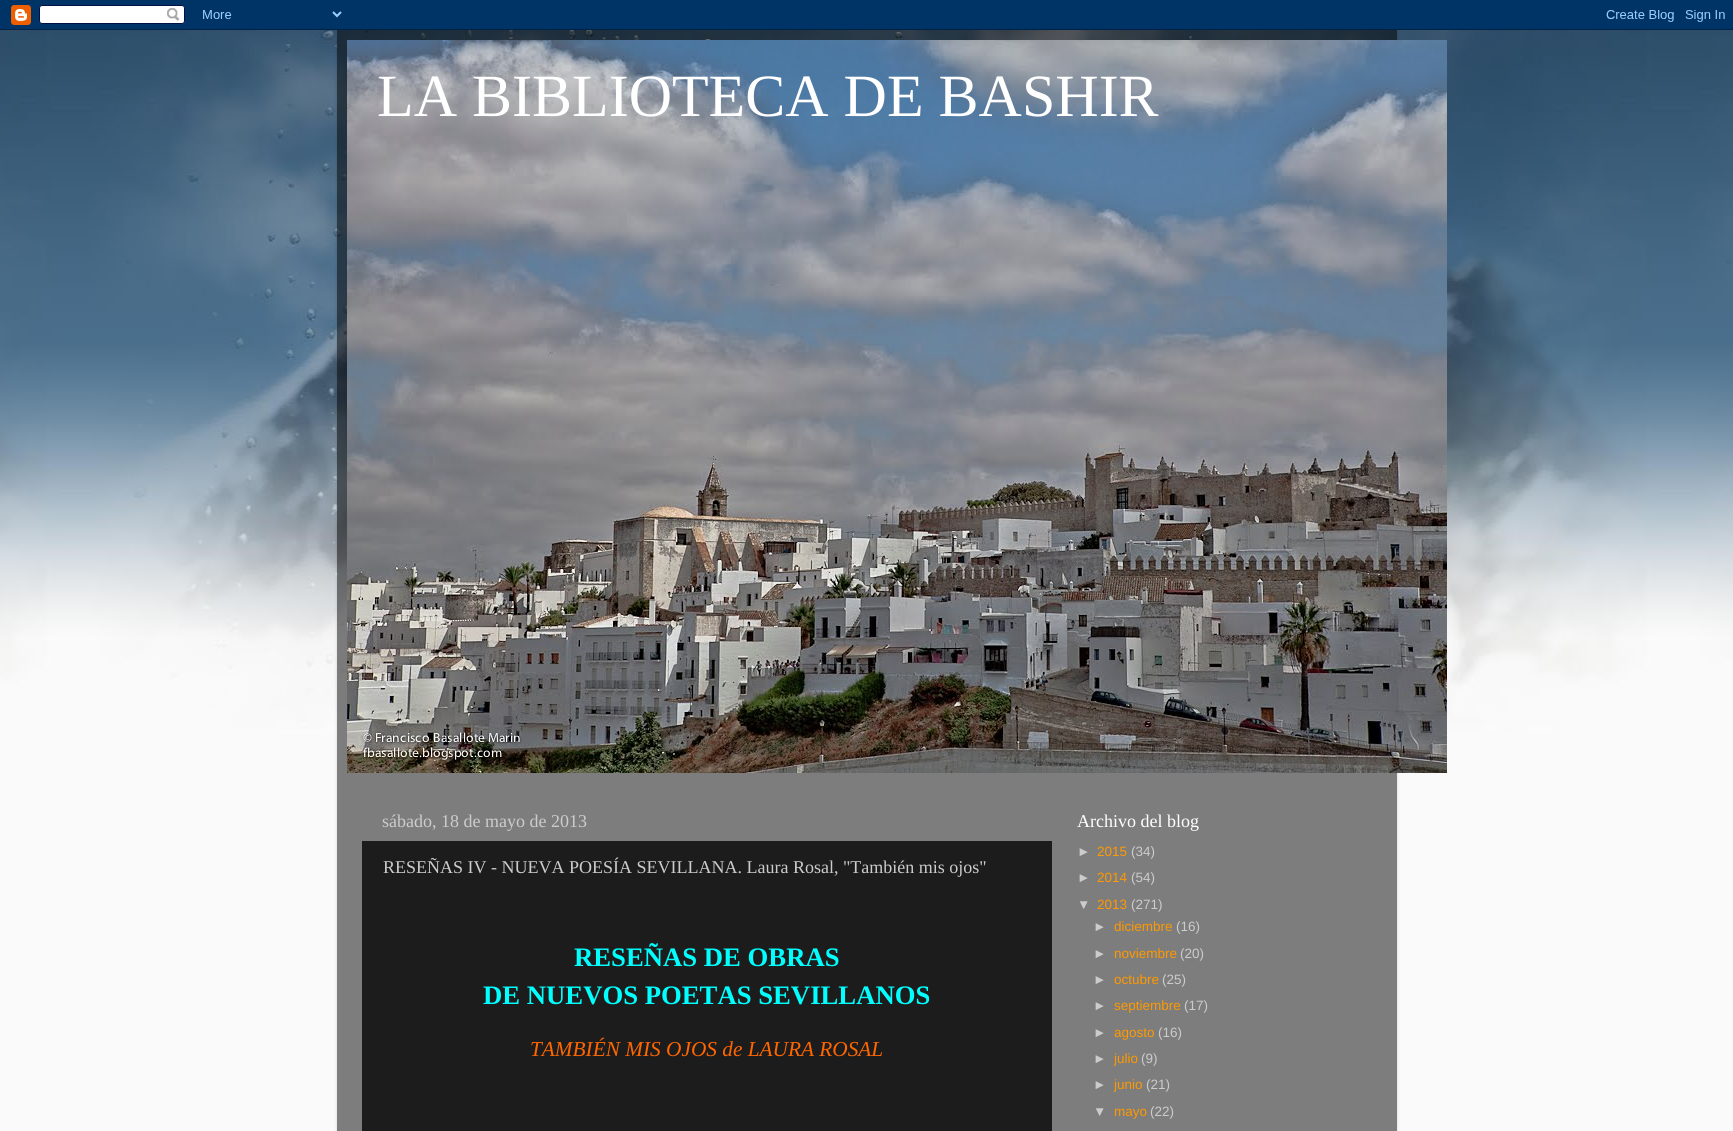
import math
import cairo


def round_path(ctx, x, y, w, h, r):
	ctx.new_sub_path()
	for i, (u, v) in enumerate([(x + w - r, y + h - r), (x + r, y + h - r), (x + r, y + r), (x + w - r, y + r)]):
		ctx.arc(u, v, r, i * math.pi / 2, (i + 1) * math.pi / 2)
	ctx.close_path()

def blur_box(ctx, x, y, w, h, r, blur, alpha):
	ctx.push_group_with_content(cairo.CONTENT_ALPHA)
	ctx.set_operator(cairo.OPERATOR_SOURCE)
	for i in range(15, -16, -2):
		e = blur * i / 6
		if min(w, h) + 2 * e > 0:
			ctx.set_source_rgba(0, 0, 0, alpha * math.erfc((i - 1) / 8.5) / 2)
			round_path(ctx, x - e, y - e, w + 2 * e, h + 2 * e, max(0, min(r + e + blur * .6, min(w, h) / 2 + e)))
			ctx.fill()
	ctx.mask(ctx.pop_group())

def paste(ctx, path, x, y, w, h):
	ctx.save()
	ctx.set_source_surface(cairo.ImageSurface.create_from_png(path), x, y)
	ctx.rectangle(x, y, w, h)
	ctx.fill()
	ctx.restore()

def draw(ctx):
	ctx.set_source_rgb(0.98, 0.98, 0.98)
	ctx.paint()
	paste(ctx, 'media/1.png', 0, 30, 1733, 704)
	ctx.save()
	ctx.set_fill_rule(cairo.FILL_RULE_EVEN_ODD)
	ctx.new_path()
	ctx.move_to(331, 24)
	ctx.line_to(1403, 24)
	ctx.line_to(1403, 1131)
	ctx.line_to(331, 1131)
	ctx.close_path()
	ctx.move_to(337, 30)
	ctx.line_to(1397, 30)
	ctx.line_to(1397, 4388)
	ctx.line_to(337, 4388)
	ctx.close_path()
	ctx.clip()
	ctx.set_source_rgb(0, 0, 0)
	blur_box(ctx, 337, 30, 1060, 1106, 0, 1.5, 0.15)
	ctx.restore()
	paste(ctx, 'media/2.png', 0, 0, 1733, 30)
	ctx.set_source_rgba(0, 0, 0, 0.5)
	ctx.rectangle(337, 30, 1060, 1101)
	ctx.fill()
	paste(ctx, 'media/3.png', 347, 40, 1100, 733)
	ctx.select_font_face('Liberation Serif')
	ctx.set_font_size(60)
	ctx.set_source_rgb(1, 1, 1)
	ctx.move_to(377, 116)
	ctx.show_text('LA BIBLIOTECA DE BASHIR')
	ctx.set_font_size(18)
	ctx.set_source_rgb(0.8, 0.8, 0.8)
	ctx.move_to(382, 827)
	ctx.show_text('sábado, 18 de mayo de 2013')
	ctx.set_source_rgb(0.11, 0.11, 0.11)
	ctx.rectangle(362, 841, 690, 290)
	ctx.fill()
	ctx.set_source_rgb(0.8, 0.8, 0.8)
	ctx.move_to(383, 873)
	ctx.show_text('RESEÑAS IV - NUEVA POESÍA SEVILLANA. Laura Rosal, "También mis ojos"')
	ctx.select_font_face('Liberation Serif', cairo.FONT_SLANT_NORMAL, cairo.FONT_WEIGHT_BOLD)
	ctx.set_font_size(26.7)
	ctx.set_source_rgb(0, 1, 1)
	ctx.move_to(574, 966)
	ctx.show_text('RESEÑAS DE OBRAS')
	ctx.move_to(483, 1004)
	ctx.show_text('DE NUEVOS POETAS SEVILLANOS')
	ctx.select_font_face('Liberation Serif', cairo.FONT_SLANT_ITALIC)
	ctx.set_font_size(21.3)
	ctx.set_source_rgb(1, 0.4, 0)
	ctx.move_to(530, 1056)
	ctx.show_text('TAMBIÉN MIS OJOS de LAURA ROSAL')
	ctx.select_font_face('Liberation Serif')
	ctx.set_font_size(18)
	ctx.set_source_rgb(1, 1, 1)
	ctx.move_to(1077, 827)
	ctx.show_text('Archivo del blog')
	ctx.select_font_face('Liberation Sans')
	ctx.set_font_size(13.5)
	ctx.set_source_rgb(0.8, 0.8, 0.8)
	ctx.move_to(1077, 856)
	ctx.show_text('►')
	ctx.set_source_rgb(1, 0.6, 0)
	ctx.move_to(1097, 856)
	ctx.show_text('2015')
	ctx.set_source_rgb(0.8, 0.8, 0.8)
	ctx.move_to(1131, 856)
	ctx.show_text('(34)')
	ctx.move_to(1077, 882)
	ctx.show_text('►')
	ctx.set_source_rgb(1, 0.6, 0)
	ctx.move_to(1097, 882)
	ctx.show_text('2014')
	ctx.set_source_rgb(0.8, 0.8, 0.8)
	ctx.move_to(1131, 882)
	ctx.show_text('(54)')
	ctx.move_to(1077, 909)
	ctx.show_text('▼')
	ctx.set_source_rgb(1, 0.6, 0)
	ctx.move_to(1097, 909)
	ctx.show_text('2013')
	ctx.set_source_rgb(0.8, 0.8, 0.8)
	ctx.move_to(1131, 909)
	ctx.show_text('(271)')
	ctx.move_to(1093, 931)
	ctx.show_text('►')
	ctx.set_source_rgb(1, 0.6, 0)
	ctx.move_to(1114, 931)
	ctx.show_text('diciembre')
	ctx.set_source_rgb(0.8, 0.8, 0.8)
	ctx.move_to(1176, 931)
	ctx.show_text('(16)')
	ctx.move_to(1093, 958)
	ctx.show_text('►')
	ctx.set_source_rgb(1, 0.6, 0)
	ctx.move_to(1114, 958)
	ctx.show_text('noviembre')
	ctx.set_source_rgb(0.8, 0.8, 0.8)
	ctx.move_to(1180, 958)
	ctx.show_text('(20)')
	ctx.move_to(1093, 984)
	ctx.show_text('►')
	ctx.set_source_rgb(1, 0.6, 0)
	ctx.move_to(1114, 984)
	ctx.show_text('octubre')
	ctx.set_source_rgb(0.8, 0.8, 0.8)
	ctx.move_to(1162, 984)
	ctx.show_text('(25)')
	ctx.move_to(1093, 1010)
	ctx.show_text('►')
	ctx.set_source_rgb(1, 0.6, 0)
	ctx.move_to(1114, 1010)
	ctx.show_text('septiembre')
	ctx.set_source_rgb(0.8, 0.8, 0.8)
	ctx.move_to(1184, 1010)
	ctx.show_text('(17)')
	ctx.move_to(1093, 1037)
	ctx.show_text('►')
	ctx.set_source_rgb(1, 0.6, 0)
	ctx.move_to(1114, 1037)
	ctx.show_text('agosto')
	ctx.set_source_rgb(0.8, 0.8, 0.8)
	ctx.move_to(1158, 1037)
	ctx.show_text('(16)')
	ctx.move_to(1093, 1063)
	ctx.show_text('►')
	ctx.set_source_rgb(1, 0.6, 0)
	ctx.move_to(1114, 1063)
	ctx.show_text('julio')
	ctx.set_source_rgb(0.8, 0.8, 0.8)
	ctx.move_to(1141, 1063)
	ctx.show_text('(9)')
	ctx.move_to(1093, 1089)
	ctx.show_text('►')
	ctx.set_source_rgb(1, 0.6, 0)
	ctx.move_to(1114, 1089)
	ctx.show_text('junio')
	ctx.set_source_rgb(0.8, 0.8, 0.8)
	ctx.move_to(1146, 1089)
	ctx.show_text('(21)')
	ctx.move_to(1093, 1116)
	ctx.show_text('▼')
	ctx.set_source_rgb(1, 0.6, 0)
	ctx.move_to(1114, 1116)
	ctx.show_text('mayo')
	ctx.set_source_rgb(0.8, 0.8, 0.8)
	ctx.move_to(1150, 1116)
	ctx.show_text('(22)')


surface = cairo.ImageSurface(cairo.FORMAT_RGB24, 1733, 1131)
ctx = cairo.Context(surface)
options = cairo.FontOptions()
options.set_hint_metrics(cairo.HINT_METRICS_OFF)
options.set_hint_style(cairo.HINT_STYLE_NONE)
ctx.set_font_options(options)
ctx.set_miter_limit(4)
draw(ctx)
surface.write_to_png('image.png')
